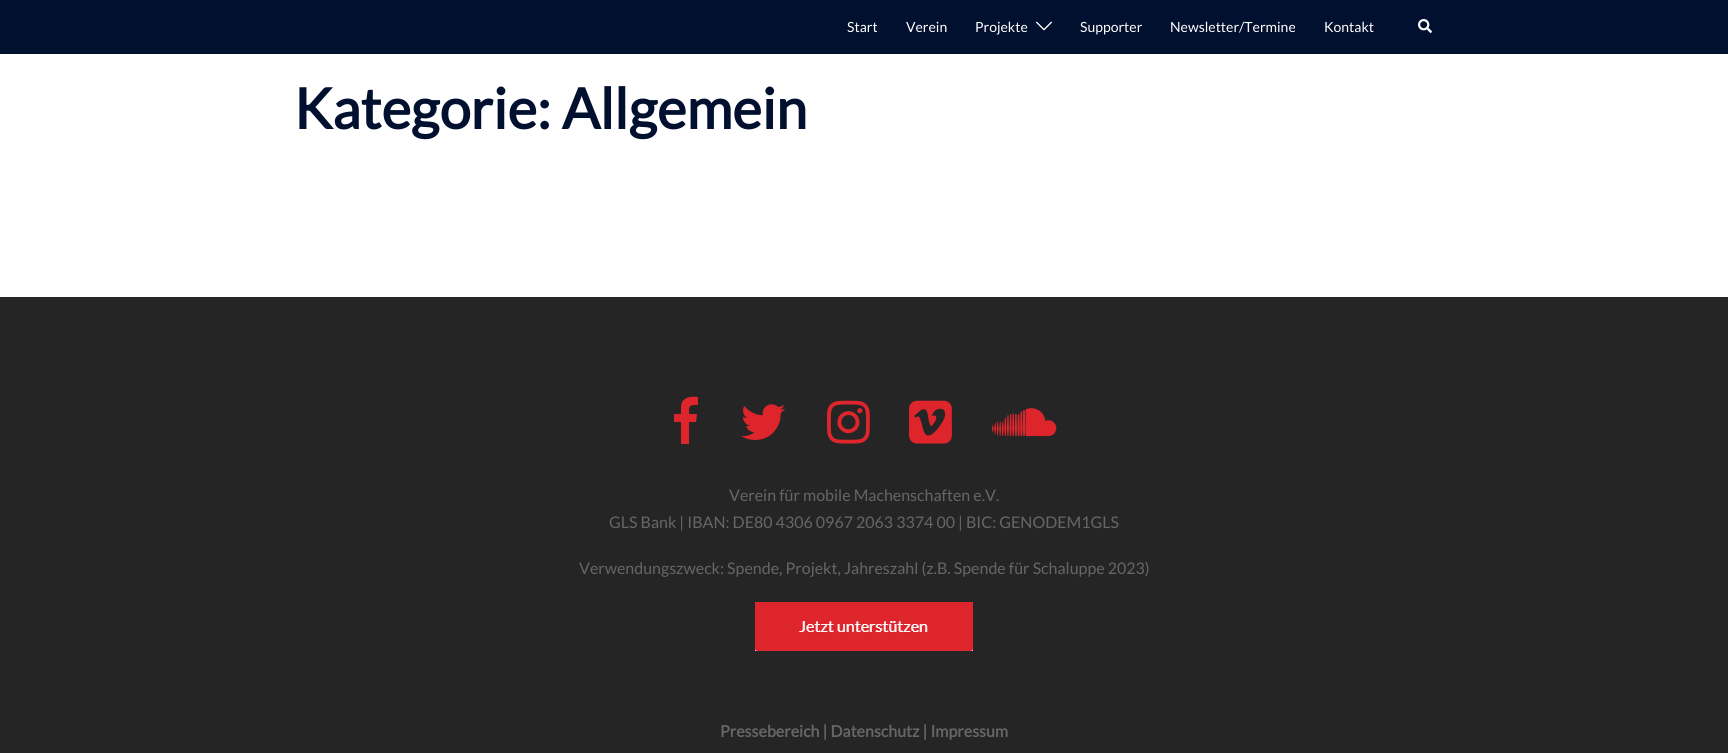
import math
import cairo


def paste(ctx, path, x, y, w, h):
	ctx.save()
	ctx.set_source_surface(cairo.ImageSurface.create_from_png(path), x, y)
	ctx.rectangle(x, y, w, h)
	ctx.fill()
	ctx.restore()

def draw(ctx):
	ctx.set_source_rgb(1, 1, 1)
	ctx.paint()
	ctx.set_source_rgb(0, 0.063, 0.18)
	ctx.rectangle(0, 0, 1728, 54)
	ctx.fill()
	ctx.select_font_face('Lato')
	ctx.set_font_size(14)
	ctx.set_source_rgb(1, 1, 1)
	for x, y, s in [
		(847, 32, 'Start'),
		(906, 32, 'Verein'),
		(975, 32, 'Projekte'),
	]:
		ctx.move_to(x, y)
		ctx.show_text(s)
	paste(ctx, 'media/1.png', 1036, 21, 16, 10)
	for x, y, s in [
		(1080, 32, 'Supporter'),
		(1170, 32, 'Newsletter/Termine'),
		(1324, 32, 'Kontakt'),
	]:
		ctx.move_to(x, y)
		ctx.show_text(s)
	paste(ctx, 'media/2.png', 1418, 19, 14, 14)
	ctx.select_font_face('Lato', cairo.FONT_SLANT_NORMAL, cairo.FONT_WEIGHT_BOLD)
	ctx.set_font_size(56)
	ctx.set_source_rgb(0, 0.063, 0.18)
	ctx.move_to(294, 129)
	ctx.show_text('Kategorie: Allgemein')
	ctx.set_source_rgb(0.145, 0.145, 0.145)
	ctx.rectangle(0, 297, 1728, 456)
	ctx.fill()
	ctx.set_source_rgb(0.871, 0.145, 0.173)
	ctx.new_path()
	ctx.move_to(698, 397)
	ctx.line_to(698, 405)
	ctx.curve_to(689, 405, 689, 405, 689, 414)
	ctx.line_to(697, 414)
	ctx.line_to(696, 422)
	ctx.line_to(689, 422)
	ctx.line_to(689, 444)
	ctx.line_to(681, 444)
	ctx.line_to(681, 422)
	ctx.line_to(674, 422)
	ctx.line_to(674, 414)
	ctx.line_to(681, 414)
	ctx.line_to(681, 406)
	ctx.curve_to(682, 397, 691, 396, 698, 397)
	ctx.close_path()
	ctx.fill()
	paste(ctx, 'media/3.png', 741, 404, 44, 36)
	paste(ctx, 'media/4.png', 827, 400, 43, 44)
	paste(ctx, 'media/5.png', 909, 400, 43, 44)
	paste(ctx, 'media/6.png', 992, 408, 65, 29)
	ctx.select_font_face('Lato')
	ctx.set_font_size(16)
	ctx.set_source_rgb(0.4, 0.4, 0.4)
	for x, y, s in [
		(729, 501, 'Verein für mobile Machenschaften e.V.'),
		(609, 528, 'GLS Bank | IBAN: DE80 4306 0967 2063 3374 00 | BIC: GENODEM1GLS'),
		(579, 574, 'Verwendungszweck: Spende, Projekt, Jahreszahl (z.B. Spende für Schaluppe 2023)'),
	]:
		ctx.move_to(x, y)
		ctx.show_text(s)
	paste(ctx, 'media/7.png', 755, 602, 218, 49)
	ctx.select_font_face('Lato', cairo.FONT_SLANT_NORMAL, cairo.FONT_WEIGHT_BOLD)
	ctx.move_to(720, 737)
	ctx.show_text('Pressebereich | Datenschutz | Impressum')


surface = cairo.ImageSurface(cairo.FORMAT_RGB24, 1728, 753)
ctx = cairo.Context(surface)
options = cairo.FontOptions()
options.set_hint_metrics(cairo.HINT_METRICS_OFF)
options.set_hint_style(cairo.HINT_STYLE_NONE)
ctx.set_font_options(options)
ctx.set_miter_limit(4)
draw(ctx)
surface.write_to_png('image.png')
